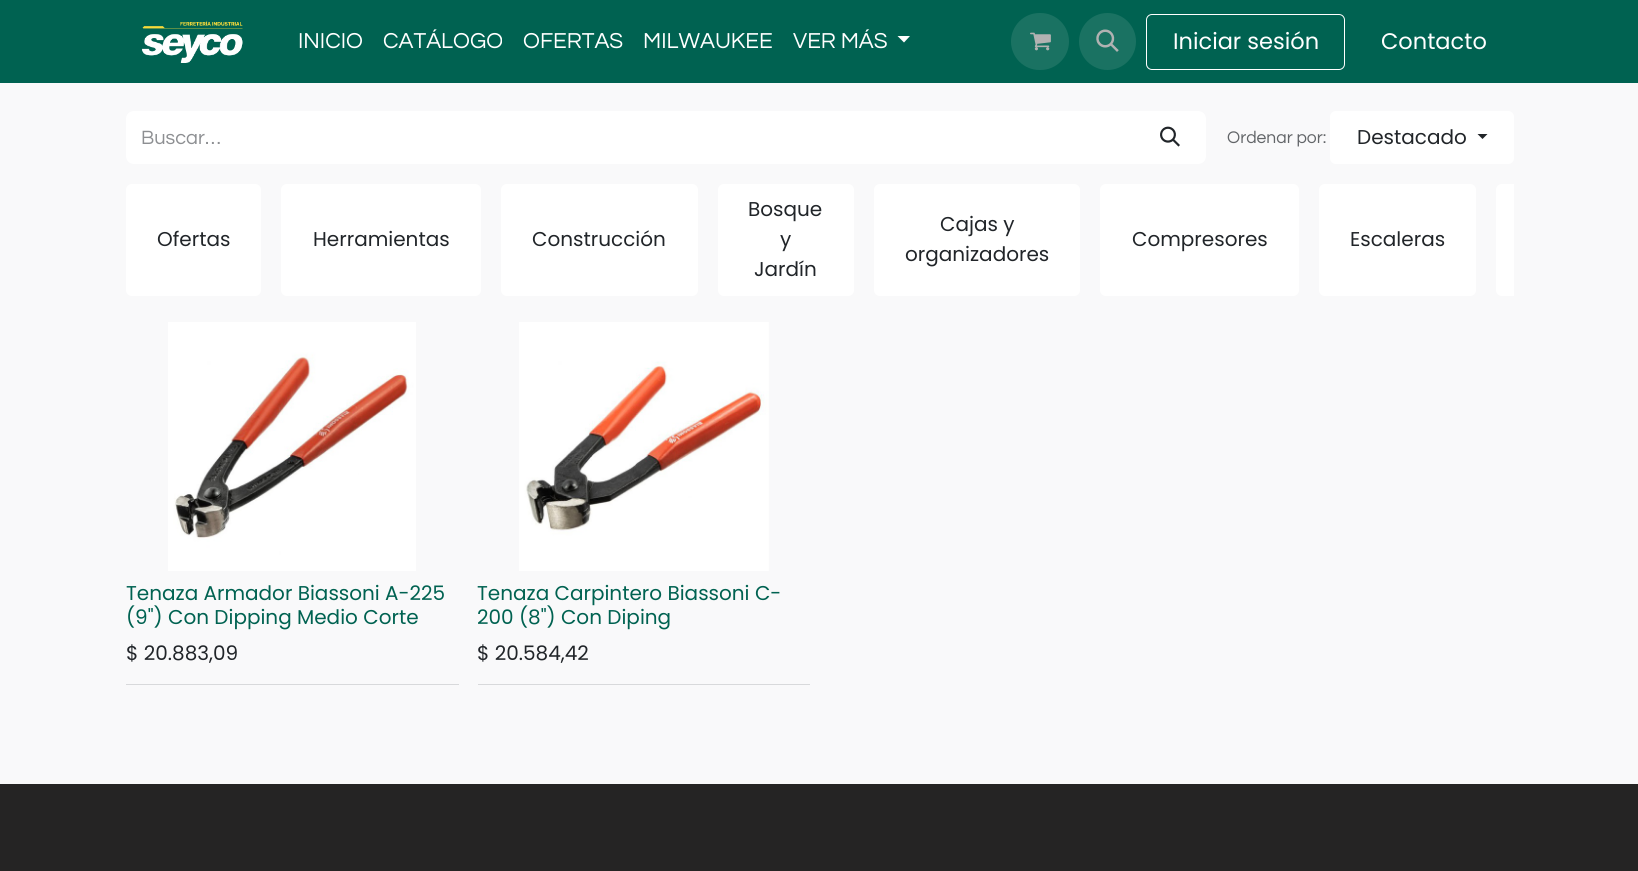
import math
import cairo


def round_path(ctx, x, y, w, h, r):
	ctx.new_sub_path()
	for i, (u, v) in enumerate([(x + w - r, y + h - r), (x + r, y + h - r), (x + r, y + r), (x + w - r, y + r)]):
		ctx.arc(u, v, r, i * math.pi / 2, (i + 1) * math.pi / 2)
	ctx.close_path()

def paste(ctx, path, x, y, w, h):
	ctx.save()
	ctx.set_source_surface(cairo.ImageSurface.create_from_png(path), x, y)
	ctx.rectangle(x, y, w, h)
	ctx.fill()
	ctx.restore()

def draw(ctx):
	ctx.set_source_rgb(0.973, 0.976, 0.98)
	ctx.paint()
	ctx.set_source_rgb(0, 0.384, 0.318)
	ctx.rectangle(0, 0, 1638, 83)
	ctx.fill()
	paste(ctx, 'media/1.png', 141, 20, 102, 43)
	ctx.select_font_face('Questrial')
	ctx.set_font_size(22.5)
	ctx.set_source_rgb(1, 1, 1)
	for x, y, s in [
		(298, 48, 'INICIO'),
		(383, 48, 'CATÁLOGO'),
		(523, 48, 'OFERTAS'),
		(643, 48, 'MILWAUKEE'),
		(793, 48, 'VER MÁS'),
	]:
		ctx.move_to(x, y)
		ctx.show_text(s)
	ctx.new_path()
	ctx.move_to(897.5, 36)
	ctx.line_to(910, 36)
	ctx.line_to(904, 42.5)
	ctx.close_path()
	ctx.fill()
	ctx.set_source_rgb(0.102, 0.447, 0.384)
	round_path(ctx, 1011, 13, 58, 57, 28.5)
	ctx.fill()
	paste(ctx, 'media/2.png', 1030, 32, 21, 19)
	ctx.arc(1107.5, 41.5, 28.5, 0, 2 * math.pi)
	ctx.fill()
	paste(ctx, 'media/3.png', 1096, 29, 23, 23)
	round_path(ctx, 1146.5, 14.5, 198, 55, 5.5)
	ctx.set_source_rgb(1, 1, 1)
	ctx.set_line_width(1)
	ctx.stroke()
	ctx.select_font_face('Poppins')
	ctx.move_to(1173, 49)
	ctx.show_text('Iniciar sesión')
	ctx.move_to(1381, 49)
	ctx.show_text('Contacto')
	ctx.new_path()
	ctx.move_to(134, 111)
	ctx.line_to(1135, 111)
	ctx.line_to(1135, 164)
	ctx.line_to(134, 164)
	ctx.curve_to(129.5, 164, 126, 160.5, 126, 156)
	ctx.line_to(126, 119)
	ctx.curve_to(126, 114.5, 129.5, 111, 134, 111)
	ctx.close_path()
	ctx.fill()
	ctx.select_font_face('Questrial')
	ctx.set_font_size(20)
	ctx.set_source_rgb(0.553, 0.561, 0.573)
	ctx.move_to(141, 144)
	ctx.show_text('Buscar…')
	ctx.set_source_rgb(1, 1, 1)
	ctx.new_path()
	ctx.move_to(1134, 111)
	ctx.line_to(1198, 111)
	ctx.curve_to(1202.5, 111, 1206, 114.5, 1206, 119)
	ctx.line_to(1206, 156)
	ctx.curve_to(1206, 160.5, 1202.5, 164, 1198, 164)
	ctx.line_to(1134, 164)
	ctx.close_path()
	ctx.fill()
	paste(ctx, 'media/4.png', 1160, 126, 20, 21)
	ctx.set_font_size(17.5)
	ctx.set_source_rgb(0.384, 0.396, 0.408)
	ctx.move_to(1227, 143)
	ctx.show_text('Ordenar por:')
	ctx.set_source_rgb(1, 1, 1)
	round_path(ctx, 1330, 111, 184, 53, 6)
	ctx.fill()
	ctx.select_font_face('Poppins')
	ctx.set_font_size(20)
	ctx.set_source_rgb(0.129, 0.145, 0.161)
	ctx.move_to(1357, 144)
	ctx.show_text('Destacado')
	ctx.new_path()
	ctx.move_to(1477.5, 134)
	ctx.line_to(1487.5, 134)
	ctx.line_to(1482.5, 139)
	ctx.close_path()
	ctx.fill()
	ctx.set_source_rgb(1, 1, 1)
	round_path(ctx, 126, 184, 135, 112, 6)
	ctx.fill()
	ctx.set_source_rgb(0.129, 0.145, 0.161)
	ctx.move_to(157, 246)
	ctx.show_text('Ofertas')
	ctx.set_source_rgb(1, 1, 1)
	round_path(ctx, 281, 184, 200, 112, 6)
	ctx.fill()
	ctx.set_source_rgb(0.129, 0.145, 0.161)
	ctx.move_to(313, 246)
	ctx.show_text('Herramientas')
	ctx.set_source_rgb(1, 1, 1)
	round_path(ctx, 501, 184, 197, 112, 6)
	ctx.fill()
	ctx.set_source_rgb(0.129, 0.145, 0.161)
	ctx.move_to(532, 246)
	ctx.show_text('Construcción')
	ctx.set_source_rgb(1, 1, 1)
	round_path(ctx, 718, 184, 136, 112, 6)
	ctx.fill()
	ctx.set_source_rgb(0.129, 0.145, 0.161)
	for x, y, s in [
		(748, 216, 'Bosque'),
		(780, 246, 'y'),
		(754, 276, 'Jardín'),
	]:
		ctx.move_to(x, y)
		ctx.show_text(s)
	ctx.set_source_rgb(1, 1, 1)
	round_path(ctx, 874, 184, 206, 112, 6)
	ctx.fill()
	ctx.set_source_rgb(0.129, 0.145, 0.161)
	ctx.move_to(940, 231)
	ctx.show_text('Cajas y')
	ctx.move_to(905, 261)
	ctx.show_text('organizadores')
	ctx.set_source_rgb(1, 1, 1)
	round_path(ctx, 1100, 184, 199, 112, 6)
	ctx.fill()
	ctx.set_source_rgb(0.129, 0.145, 0.161)
	ctx.move_to(1132, 246)
	ctx.show_text('Compresores')
	ctx.set_source_rgb(1, 1, 1)
	round_path(ctx, 1319, 184, 157, 112, 6)
	ctx.fill()
	ctx.set_source_rgb(0.129, 0.145, 0.161)
	ctx.move_to(1350, 246)
	ctx.show_text('Escaleras')
	ctx.set_source_rgb(1, 1, 1)
	ctx.new_path()
	ctx.move_to(1502, 184)
	ctx.line_to(1514, 184)
	ctx.line_to(1514, 296)
	ctx.line_to(1502, 296)
	ctx.curve_to(1498.5, 296, 1496, 293.5, 1496, 290)
	ctx.line_to(1496, 190)
	ctx.curve_to(1496, 186.5, 1498.5, 184, 1502, 184)
	ctx.close_path()
	ctx.fill()
	ctx.set_source_rgb(0.847, 0.851, 0.859)
	ctx.rectangle(126, 684, 333, 1)
	ctx.fill()
	paste(ctx, 'media/5.png', 168, 322, 248, 249)
	ctx.set_source_rgb(0, 0.384, 0.318)
	ctx.move_to(126, 600)
	ctx.show_text('Tenaza Armador Biassoni A-225')
	ctx.move_to(126, 624)
	ctx.show_text('(9") Con Dipping Medio Corte')
	ctx.set_source_rgb(0.129, 0.145, 0.161)
	ctx.move_to(126, 660)
	ctx.show_text('$ 20.883,09')
	ctx.set_source_rgb(0.847, 0.851, 0.859)
	ctx.rectangle(478, 684, 332, 1)
	ctx.fill()
	paste(ctx, 'media/6.png', 519, 322, 250, 249)
	ctx.set_source_rgb(0, 0.384, 0.318)
	ctx.move_to(477, 600)
	ctx.show_text('Tenaza Carpintero Biassoni C-')
	ctx.move_to(477, 624)
	ctx.show_text('200 (8") Con Diping')
	ctx.set_source_rgb(0.129, 0.145, 0.161)
	ctx.move_to(477, 660)
	ctx.show_text('$ 20.584,42')
	ctx.set_source_rgb(0.145, 0.141, 0.141)
	ctx.rectangle(0, 784, 1638, 87)
	ctx.fill()


surface = cairo.ImageSurface(cairo.FORMAT_RGB24, 1638, 871)
ctx = cairo.Context(surface)
options = cairo.FontOptions()
options.set_hint_metrics(cairo.HINT_METRICS_OFF)
options.set_hint_style(cairo.HINT_STYLE_NONE)
ctx.set_font_options(options)
ctx.set_miter_limit(4)
draw(ctx)
surface.write_to_png('image.png')
